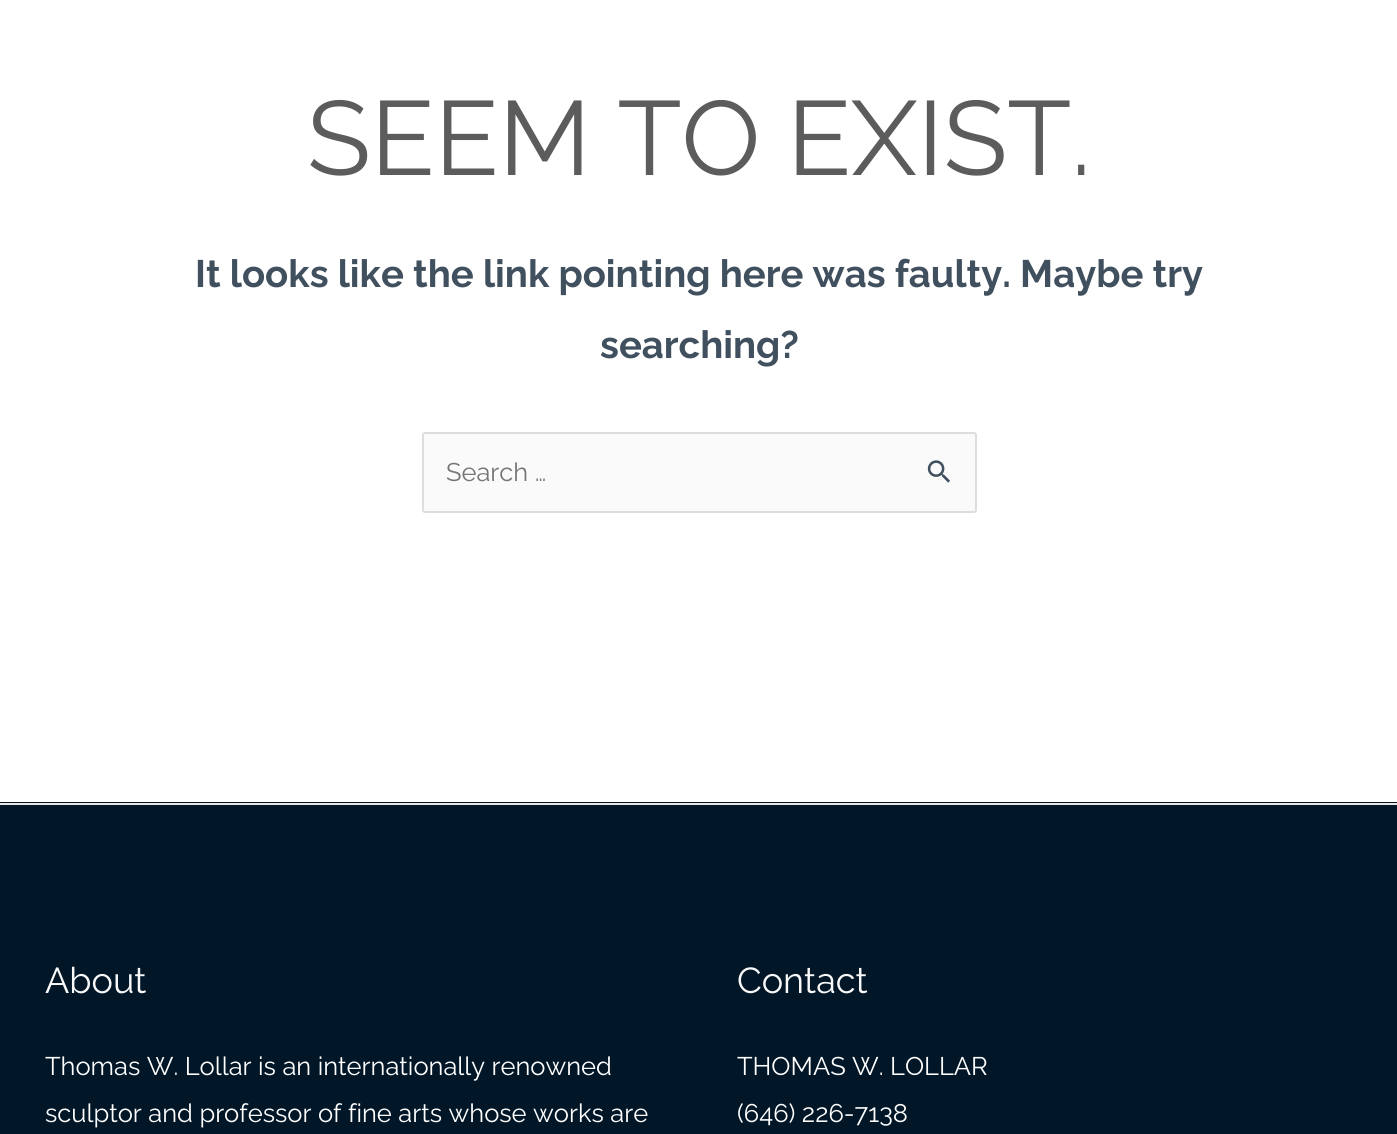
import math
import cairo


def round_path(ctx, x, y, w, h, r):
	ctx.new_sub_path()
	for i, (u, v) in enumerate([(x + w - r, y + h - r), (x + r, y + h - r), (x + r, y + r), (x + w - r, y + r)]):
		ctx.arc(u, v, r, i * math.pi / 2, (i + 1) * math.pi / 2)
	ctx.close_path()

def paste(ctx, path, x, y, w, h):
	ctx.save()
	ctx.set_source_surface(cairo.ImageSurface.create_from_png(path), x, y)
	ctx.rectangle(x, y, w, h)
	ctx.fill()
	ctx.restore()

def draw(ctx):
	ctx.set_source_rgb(1, 1, 1)
	ctx.paint()
	ctx.select_font_face('Raleway')
	ctx.set_font_size(105)
	ctx.set_source_rgb(0.361, 0.361, 0.361)
	ctx.move_to(307, 175)
	ctx.show_text('SEEM TO EXIST.')
	ctx.select_font_face('Raleway', cairo.FONT_SLANT_NORMAL, cairo.FONT_WEIGHT_BOLD)
	ctx.set_font_size(38.25)
	ctx.set_source_rgb(0.255, 0.314, 0.369)
	ctx.move_to(195, 287)
	ctx.show_text('It looks like the link pointing here was faulty. Maybe try')
	ctx.move_to(600, 358)
	ctx.show_text('searching?')
	ctx.set_source_rgb(0.98, 0.98, 0.98)
	round_path(ctx, 423, 433, 553, 79, 2)
	ctx.fill_preserve()
	ctx.set_source_rgb(0.867, 0.867, 0.867)
	ctx.stroke()
	ctx.select_font_face('Raleway')
	ctx.set_font_size(25.5)
	ctx.set_source_rgb(0.459, 0.459, 0.459)
	ctx.move_to(446, 481)
	ctx.show_text('Search …')
	paste(ctx, 'media/1.png', 927, 460, 23, 23)
	ctx.set_source_rgb(0.004, 0.086, 0.153)
	ctx.rectangle(0, 802, 1397, 332)
	ctx.fill()
	ctx.set_source_rgb(0.902, 0.902, 0.902)
	ctx.rectangle(0, 803, 1397, 2)
	ctx.fill()
	ctx.set_font_size(36)
	ctx.set_source_rgb(0.976, 0.973, 0.973)
	ctx.move_to(45, 993)
	ctx.show_text('About')
	ctx.set_font_size(25.5)
	ctx.set_source_rgb(1, 1, 1)
	ctx.move_to(45, 1075)
	ctx.show_text('Thomas W. Lollar is an internationally renowned')
	ctx.move_to(45, 1122)
	ctx.show_text('sculptor and professor of fine arts whose works are')
	ctx.set_font_size(36)
	ctx.set_source_rgb(0.976, 0.973, 0.973)
	ctx.move_to(737, 993)
	ctx.show_text('Contact')
	ctx.set_font_size(25.5)
	ctx.set_source_rgb(1, 1, 1)
	ctx.move_to(737, 1075)
	ctx.show_text('THOMAS W. LOLLAR')
	ctx.move_to(737, 1122)
	ctx.show_text('(646) 226-7138')


surface = cairo.ImageSurface(cairo.FORMAT_RGB24, 1397, 1134)
ctx = cairo.Context(surface)
options = cairo.FontOptions()
options.set_hint_metrics(cairo.HINT_METRICS_OFF)
options.set_hint_style(cairo.HINT_STYLE_NONE)
ctx.set_font_options(options)
ctx.set_miter_limit(4)
draw(ctx)
surface.write_to_png('image.png')
